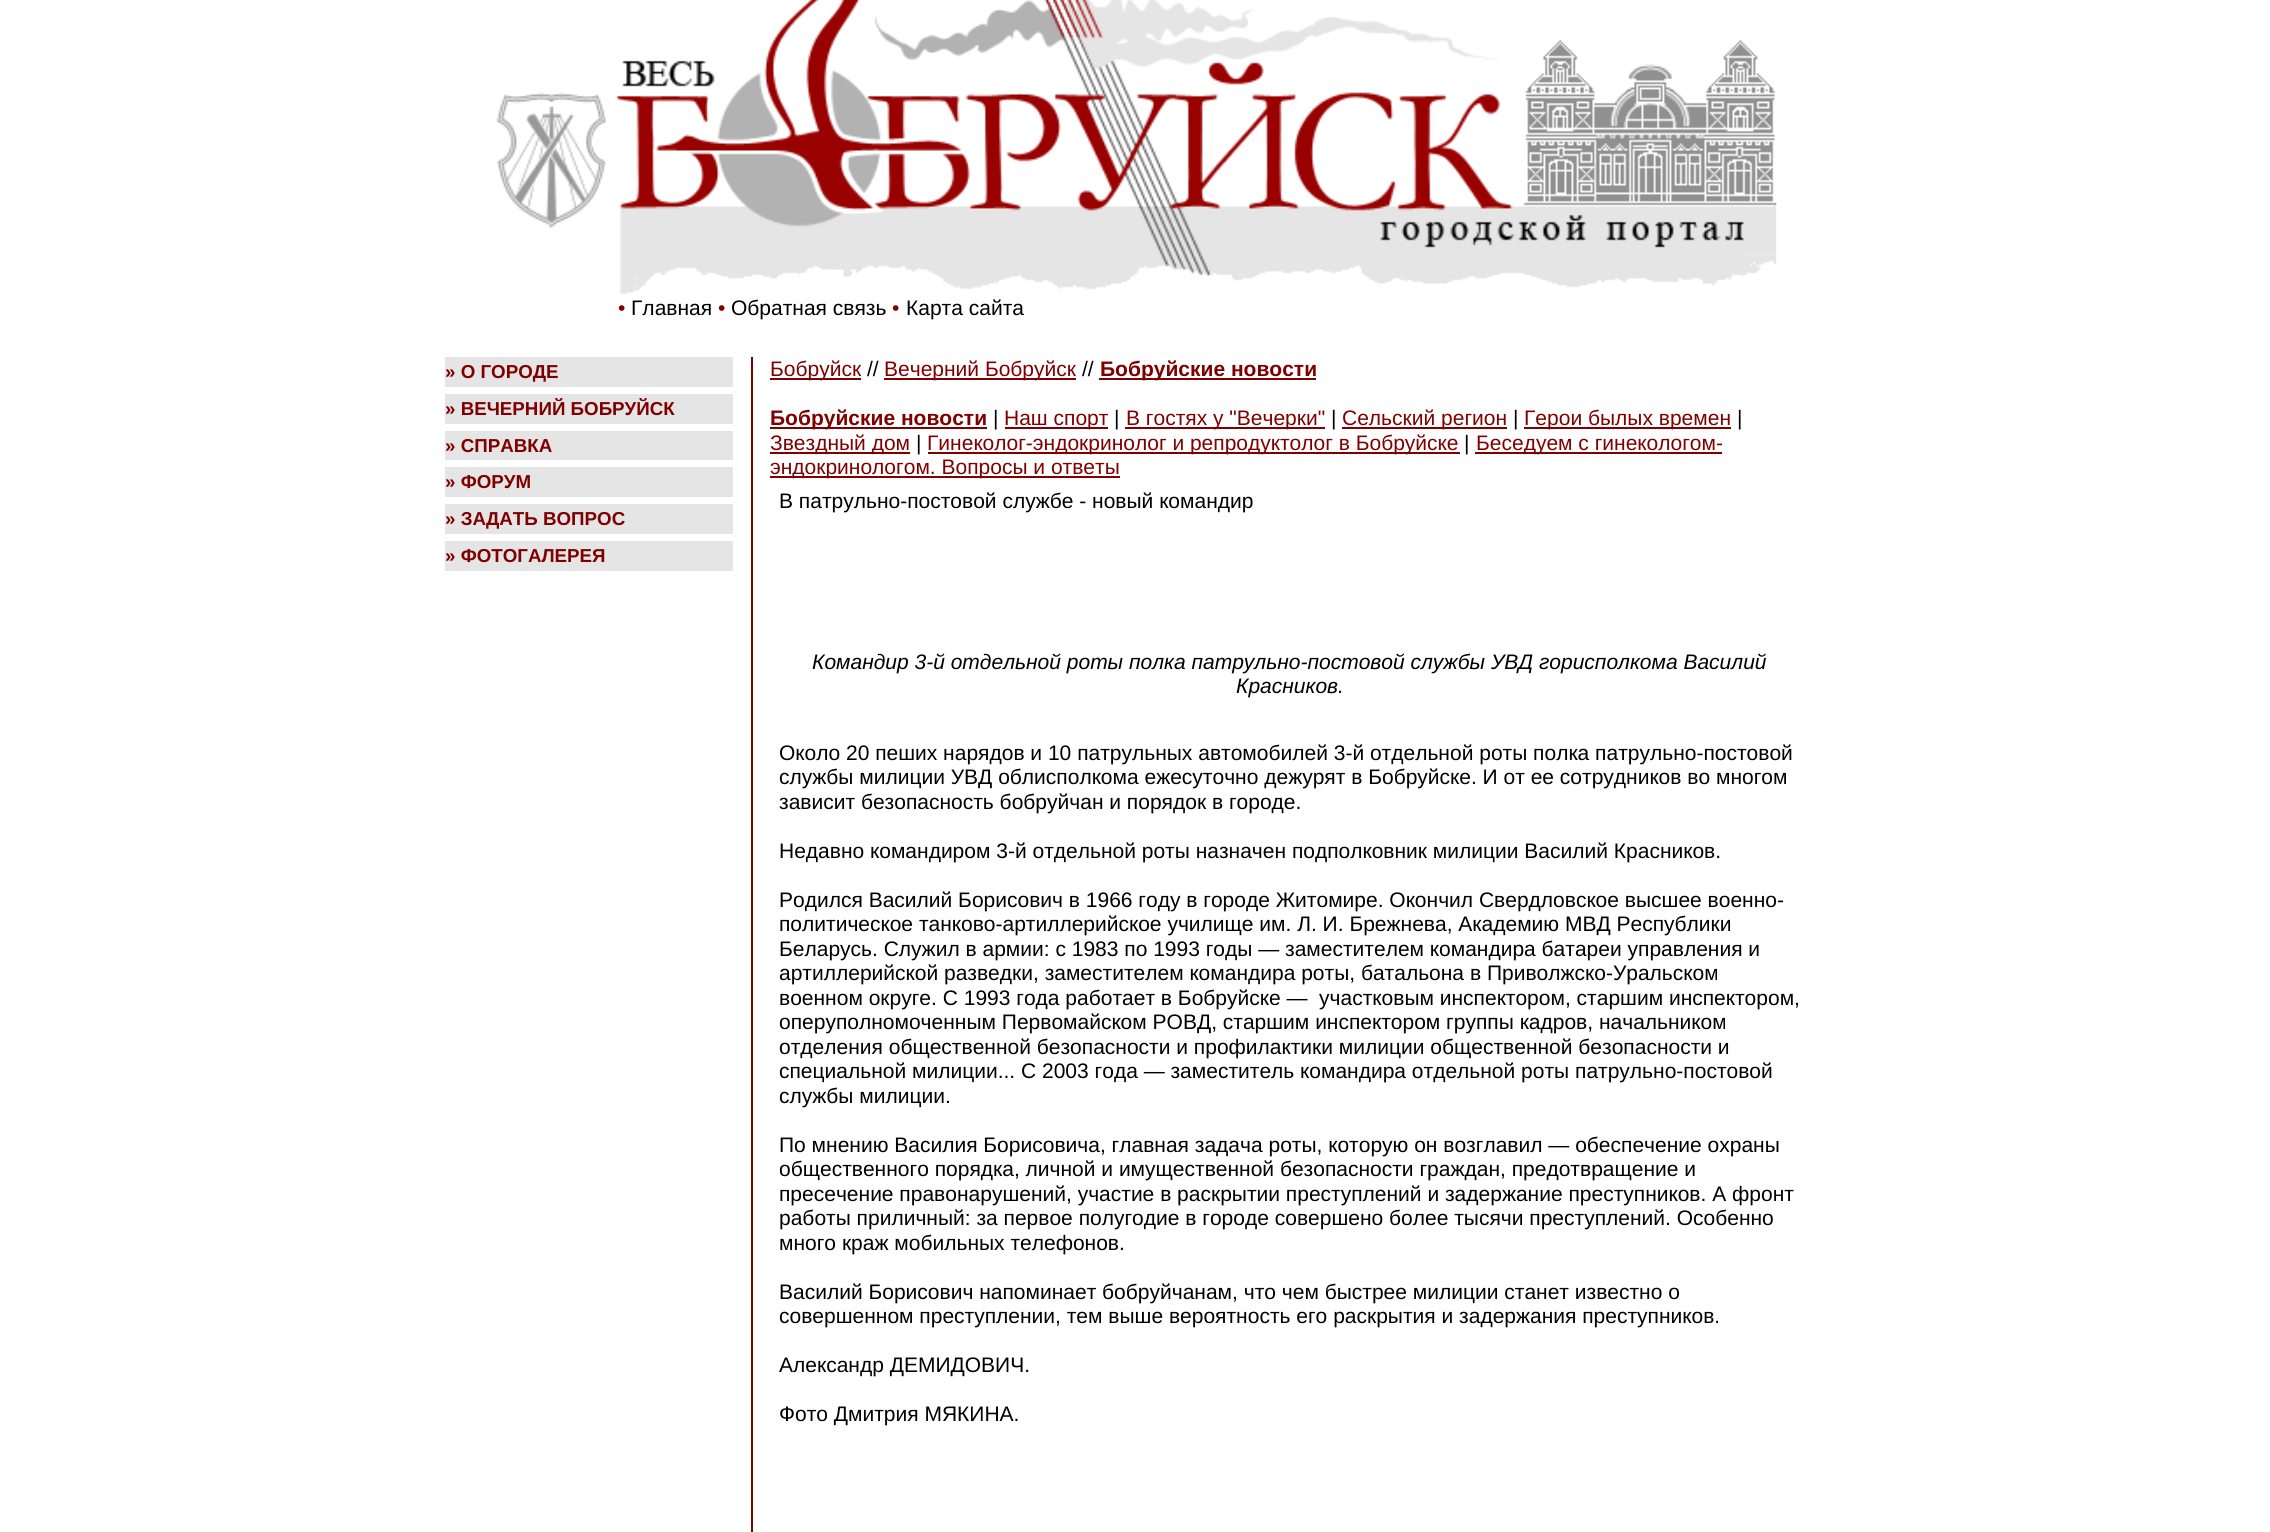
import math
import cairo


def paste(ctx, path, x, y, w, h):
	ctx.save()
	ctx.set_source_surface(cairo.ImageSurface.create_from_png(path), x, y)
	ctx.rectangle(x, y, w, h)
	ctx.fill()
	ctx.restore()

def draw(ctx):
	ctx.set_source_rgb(1, 1, 1)
	ctx.paint()
	paste(ctx, 'media/1.png', 496, 0, 1281, 295)
	ctx.select_font_face('Liberation Sans')
	ctx.set_font_size(21)
	ctx.set_source_rgb(0.502, 0, 0)
	ctx.move_to(618, 315)
	ctx.show_text('•')
	ctx.set_source_rgb(0, 0, 0)
	ctx.move_to(631, 315)
	ctx.show_text('Главная')
	ctx.set_source_rgb(0.502, 0, 0)
	ctx.move_to(718, 315)
	ctx.show_text('•')
	ctx.set_source_rgb(0, 0, 0)
	ctx.move_to(731, 315)
	ctx.show_text('Обратная связь')
	ctx.set_source_rgb(0.502, 0, 0)
	ctx.move_to(892, 315)
	ctx.show_text('•')
	ctx.set_source_rgb(0, 0, 0)
	ctx.move_to(906, 315)
	ctx.show_text('Карта сайта')
	ctx.set_source_rgb(0.502, 0, 0)
	ctx.rectangle(751, 357, 2, 1175)
	ctx.fill()
	ctx.set_source_rgb(0.898, 0.898, 0.898)
	ctx.rectangle(445, 357, 288, 30)
	ctx.fill()
	ctx.select_font_face('Liberation Sans', cairo.FONT_SLANT_NORMAL, cairo.FONT_WEIGHT_BOLD)
	ctx.set_font_size(18.75)
	ctx.set_source_rgb(0.502, 0, 0)
	ctx.move_to(445, 378)
	ctx.show_text('» О ГОРОДЕ')
	ctx.set_source_rgb(0.898, 0.898, 0.898)
	ctx.rectangle(445, 394, 288, 30)
	ctx.fill()
	ctx.set_source_rgb(0.502, 0, 0)
	ctx.move_to(445, 415)
	ctx.show_text('» ВЕЧЕРНИЙ БОБРУЙСК')
	ctx.set_source_rgb(0.898, 0.898, 0.898)
	ctx.rectangle(445, 431, 288, 29)
	ctx.fill()
	ctx.set_source_rgb(0.502, 0, 0)
	ctx.move_to(445, 452)
	ctx.show_text('» СПРАВКА')
	ctx.set_source_rgb(0.898, 0.898, 0.898)
	ctx.rectangle(445, 467, 288, 30)
	ctx.fill()
	ctx.set_source_rgb(0.502, 0, 0)
	ctx.move_to(445, 488)
	ctx.show_text('» ФОРУМ')
	ctx.set_source_rgb(0.898, 0.898, 0.898)
	ctx.rectangle(445, 504, 288, 30)
	ctx.fill()
	ctx.set_source_rgb(0.502, 0, 0)
	ctx.move_to(445, 525)
	ctx.show_text('» ЗАДАТЬ ВОПРОС')
	ctx.set_source_rgb(0.898, 0.898, 0.898)
	ctx.rectangle(445, 541, 288, 30)
	ctx.fill()
	ctx.set_source_rgb(0.502, 0, 0)
	ctx.move_to(445, 562)
	ctx.show_text('» ФОТОГАЛЕРЕЯ')
	ctx.rectangle(770, 378, 91, 2)
	ctx.fill()
	ctx.select_font_face('Liberation Sans')
	ctx.set_font_size(21)
	ctx.move_to(770, 376)
	ctx.show_text('Бобруйск')
	ctx.set_source_rgb(0, 0, 0)
	ctx.move_to(867, 376)
	ctx.show_text('//')
	ctx.set_source_rgb(0.502, 0, 0)
	ctx.rectangle(884, 378, 192, 2)
	ctx.fill()
	ctx.move_to(884, 376)
	ctx.show_text('Вечерний Бобруйск')
	ctx.set_source_rgb(0, 0, 0)
	ctx.move_to(1082, 376)
	ctx.show_text('//')
	ctx.set_source_rgb(0.502, 0, 0)
	ctx.rectangle(1099, 378, 217, 2)
	ctx.fill()
	ctx.select_font_face('Liberation Sans', cairo.FONT_SLANT_NORMAL, cairo.FONT_WEIGHT_BOLD)
	ctx.move_to(1100, 376)
	ctx.show_text('Бобруйские новости')
	ctx.rectangle(770, 427, 217, 2)
	ctx.fill()
	ctx.move_to(770, 425)
	ctx.show_text('Бобруйские новости')
	ctx.select_font_face('Liberation Sans')
	ctx.set_source_rgb(0, 0, 0)
	ctx.move_to(993, 425)
	ctx.show_text('|')
	ctx.set_source_rgb(0.502, 0, 0)
	ctx.rectangle(1005, 427, 103, 2)
	ctx.fill()
	ctx.move_to(1004, 425)
	ctx.show_text('Наш спорт')
	ctx.set_source_rgb(0, 0, 0)
	ctx.move_to(1114, 425)
	ctx.show_text('|')
	ctx.set_source_rgb(0.502, 0, 0)
	ctx.rectangle(1125, 427, 200, 2)
	ctx.fill()
	ctx.move_to(1126, 425)
	ctx.show_text('В гостях у "Вечерки"')
	ctx.set_source_rgb(0, 0, 0)
	ctx.move_to(1331, 425)
	ctx.show_text('|')
	ctx.set_source_rgb(0.502, 0, 0)
	ctx.rectangle(1342, 427, 165, 2)
	ctx.fill()
	ctx.move_to(1342, 425)
	ctx.show_text('Сельский регион')
	ctx.set_source_rgb(0, 0, 0)
	ctx.move_to(1513, 425)
	ctx.show_text('|')
	ctx.set_source_rgb(0.502, 0, 0)
	ctx.rectangle(1524, 427, 207, 2)
	ctx.fill()
	ctx.move_to(1524, 425)
	ctx.show_text('Герои былых времен')
	ctx.set_source_rgb(0, 0, 0)
	ctx.move_to(1737, 425)
	ctx.show_text('|')
	ctx.set_source_rgb(0.502, 0, 0)
	ctx.rectangle(770, 452, 140, 2)
	ctx.fill()
	ctx.move_to(770, 450)
	ctx.show_text('Звездный дом')
	ctx.set_source_rgb(0, 0, 0)
	ctx.move_to(916, 450)
	ctx.show_text('|')
	ctx.set_source_rgb(0.502, 0, 0)
	ctx.rectangle(928, 452, 532, 2)
	ctx.fill()
	ctx.move_to(927, 450)
	ctx.show_text('Гинеколог-эндокринолог и репродуктолог в Бобруйске')
	ctx.set_source_rgb(0, 0, 0)
	ctx.move_to(1464, 450)
	ctx.show_text('|')
	ctx.set_source_rgb(0.502, 0, 0)
	ctx.rectangle(1475, 452, 247, 2)
	ctx.fill()
	ctx.move_to(1476, 450)
	ctx.show_text('Беседуем с гинекологом-')
	ctx.rectangle(770, 476, 350, 2)
	ctx.fill()
	ctx.move_to(770, 474)
	ctx.show_text('эндокринологом. Вопросы и ответы')
	ctx.set_source_rgb(0, 0, 0)
	ctx.move_to(779, 508)
	ctx.show_text('В патрульно-постовой службе - новый командир')
	ctx.select_font_face('Liberation Sans', cairo.FONT_SLANT_ITALIC)
	ctx.move_to(812, 669)
	ctx.show_text('Командир 3-й отдельной роты полка патрульно-постовой службы УВД горисполкома Василий')
	ctx.move_to(1236, 693)
	ctx.show_text('Красников.')
	ctx.select_font_face('Liberation Sans')
	for x, y, s in [
		(779, 760, 'Около 20 пеших нарядов и 10 патрульных автомобилей 3-й отдельной роты полка патрульно-постовой'),
		(779, 784, 'службы милиции УВД облисполкома ежесуточно дежурят в Бобруйске. И от ее сотрудников во многом'),
		(779, 809, 'зависит безопасность бобруйчан и порядок в городе.'),
		(779, 858, 'Недавно командиром 3-й отдельной роты назначен подполковник милиции Василий Красников.'),
		(779, 907, 'Родился Василий Борисович в 1966 году в городе Житомире. Окончил Свердловское высшее военно-'),
		(779, 931, 'политическое танково-артиллерийское училище им. Л. И. Брежнева, Академию МВД Республики'),
		(779, 956, 'Беларусь. Служил в армии: с 1983 по 1993 годы — заместителем командира батареи управления и'),
		(779, 980, 'артиллерийской разведки, заместителем командира роты, батальона в Приволжско-Уральском'),
		(779, 1005, 'военном округе. С 1993 года работает в Бобруйске —  участковым инспектором, старшим инспектором,'),
		(779, 1029, 'оперуполномоченным Первомайском РОВД, старшим инспектором группы кадров, начальником'),
		(779, 1054, 'отделения общественной безопасности и профилактики милиции общественной безопасности и'),
		(779, 1078, 'специальной милиции... С 2003 года — заместитель командира отдельной роты патрульно-постовой'),
		(779, 1103, 'службы милиции.'),
		(779, 1152, 'По мнению Василия Борисовича, главная задача роты, которую он возглавил — обеспечение охраны'),
		(779, 1176, 'общественного порядка, личной и имущественной безопасности граждан, предотвращение и'),
		(779, 1201, 'пресечение правонарушений, участие в раскрытии преступлений и задержание преступников. А фронт'),
		(779, 1225, 'работы приличный: за первое полугодие в городе совершено более тысячи преступлений. Особенно'),
		(779, 1250, 'много краж мобильных телефонов.'),
		(779, 1299, 'Василий Борисович напоминает бобруйчанам, что чем быстрее милиции станет известно о'),
		(779, 1323, 'совершенном преступлении, тем выше вероятность его раскрытия и задержания преступников.'),
		(779, 1372, 'Александр ДЕМИДОВИЧ.'),
		(779, 1421, 'Фото Дмитрия МЯКИНА.'),
	]:
		ctx.move_to(x, y)
		ctx.show_text(s)


surface = cairo.ImageSurface(cairo.FORMAT_RGB24, 2270, 1532)
ctx = cairo.Context(surface)
options = cairo.FontOptions()
options.set_hint_metrics(cairo.HINT_METRICS_OFF)
options.set_hint_style(cairo.HINT_STYLE_NONE)
ctx.set_font_options(options)
ctx.set_miter_limit(4)
draw(ctx)
surface.write_to_png('image.png')
